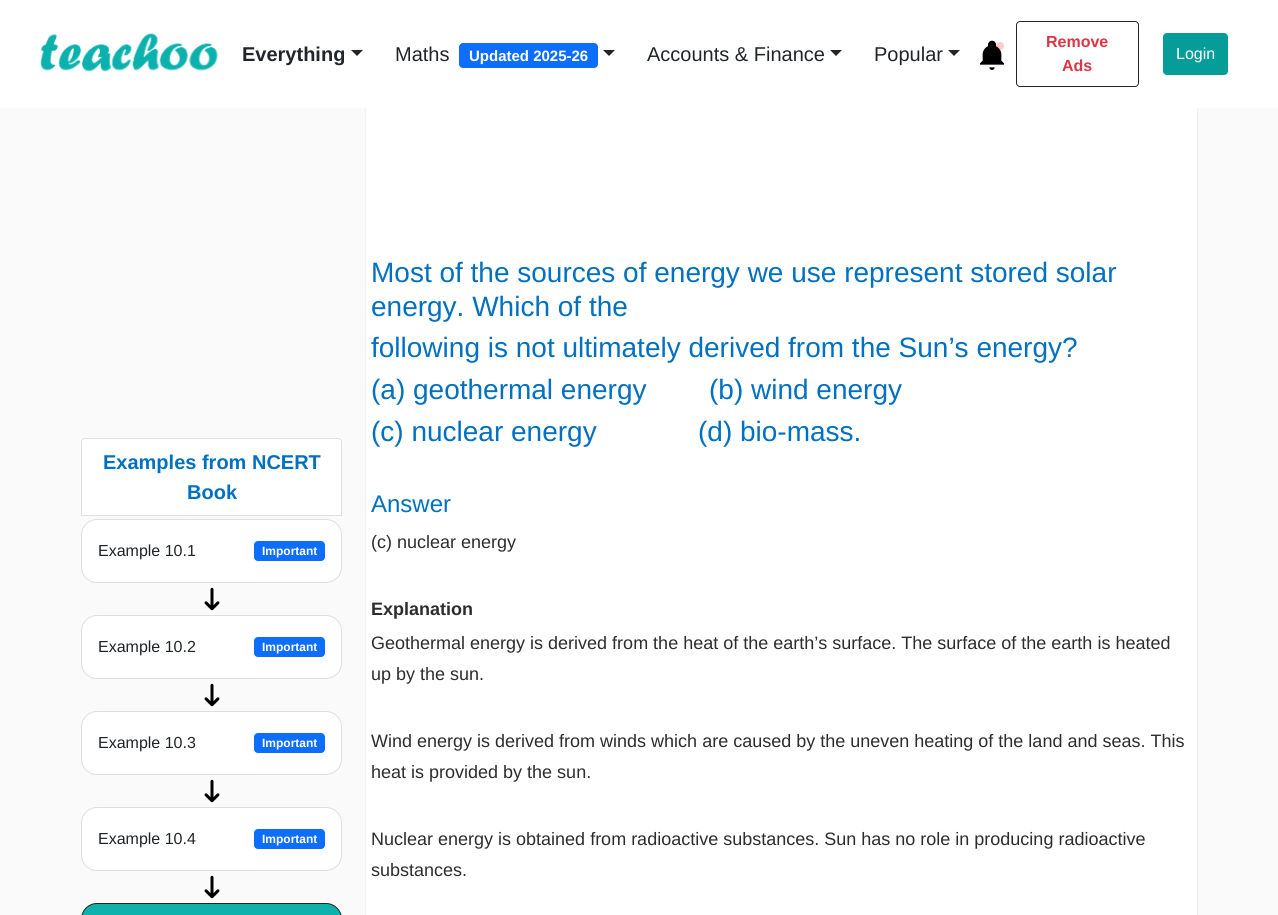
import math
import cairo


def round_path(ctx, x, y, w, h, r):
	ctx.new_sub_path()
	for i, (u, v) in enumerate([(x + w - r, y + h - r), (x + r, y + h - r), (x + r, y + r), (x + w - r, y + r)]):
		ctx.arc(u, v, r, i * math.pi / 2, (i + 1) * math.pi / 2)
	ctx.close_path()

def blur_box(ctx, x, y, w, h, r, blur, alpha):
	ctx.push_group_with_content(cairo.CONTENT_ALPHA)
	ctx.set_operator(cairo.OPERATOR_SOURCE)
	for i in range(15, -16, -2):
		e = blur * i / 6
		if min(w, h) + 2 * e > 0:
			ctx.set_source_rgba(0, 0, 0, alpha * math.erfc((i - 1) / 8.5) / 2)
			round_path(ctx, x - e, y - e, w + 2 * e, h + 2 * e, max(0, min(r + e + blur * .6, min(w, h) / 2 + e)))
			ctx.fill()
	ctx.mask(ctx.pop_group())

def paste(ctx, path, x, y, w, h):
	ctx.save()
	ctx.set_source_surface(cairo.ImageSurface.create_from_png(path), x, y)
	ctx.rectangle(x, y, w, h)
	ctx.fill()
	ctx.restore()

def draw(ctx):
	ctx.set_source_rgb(0.98, 0.98, 0.98)
	ctx.paint()
	ctx.set_source_rgb(0, 0, 0)
	blur_box(ctx, 366, -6, 831, 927, 3, 1, 0.1)
	ctx.set_source_rgb(1, 1, 1)
	ctx.rectangle(0, 0, 1278, 108)
	ctx.fill()
	paste(ctx, 'media/1.png', 40, 33, 178, 39)
	ctx.select_font_face('Liberation Sans', cairo.FONT_SLANT_NORMAL, cairo.FONT_WEIGHT_BOLD)
	ctx.set_font_size(20)
	ctx.set_source_rgb(0.129, 0.145, 0.161)
	ctx.move_to(242, 61)
	ctx.show_text('Everything')
	ctx.new_path()
	ctx.move_to(351, 50)
	ctx.line_to(363, 50)
	ctx.line_to(357, 56)
	ctx.close_path()
	ctx.fill()
	ctx.select_font_face('Liberation Sans')
	ctx.move_to(395, 61)
	ctx.show_text('Maths')
	ctx.set_source_rgb(0.051, 0.431, 0.992)
	round_path(ctx, 459, 43, 139, 25, 4)
	ctx.fill()
	ctx.select_font_face('Liberation Sans', cairo.FONT_SLANT_NORMAL, cairo.FONT_WEIGHT_BOLD)
	ctx.set_font_size(15)
	ctx.set_source_rgb(1, 1, 1)
	ctx.move_to(469, 61)
	ctx.show_text('Updated 2025-26')
	ctx.set_source_rgb(0.129, 0.145, 0.161)
	ctx.new_path()
	ctx.move_to(603, 50)
	ctx.line_to(615, 50)
	ctx.line_to(609, 56)
	ctx.close_path()
	ctx.fill()
	ctx.select_font_face('Liberation Sans')
	ctx.set_font_size(20)
	ctx.move_to(647, 61)
	ctx.show_text('Accounts & Finance')
	ctx.new_path()
	ctx.move_to(830, 50)
	ctx.line_to(842, 50)
	ctx.line_to(836, 56)
	ctx.close_path()
	ctx.fill()
	ctx.move_to(874, 61)
	ctx.show_text('Popular')
	ctx.new_path()
	ctx.move_to(948, 50)
	ctx.line_to(960, 50)
	ctx.line_to(954, 56)
	ctx.close_path()
	ctx.fill()
	paste(ctx, 'media/2.png', 980, 40, 24, 30)
	round_path(ctx, 1016.5, 21.5, 122, 65, 3.5)
	ctx.set_line_width(1)
	ctx.stroke()
	ctx.select_font_face('Liberation Sans', cairo.FONT_SLANT_NORMAL, cairo.FONT_WEIGHT_BOLD)
	ctx.set_font_size(16)
	ctx.set_source_rgb(0.863, 0.208, 0.271)
	ctx.move_to(1046, 47)
	ctx.show_text('Remove')
	ctx.move_to(1062, 71)
	ctx.show_text('Ads')
	ctx.set_source_rgb(0.027, 0.612, 0.596)
	round_path(ctx, 1163, 33, 65, 42, 4)
	ctx.fill()
	ctx.select_font_face('Liberation Sans')
	ctx.set_source_rgb(1, 1, 1)
	ctx.move_to(1176, 59)
	ctx.show_text('Login')
	ctx.new_path()
	ctx.move_to(85, 438.5)
	ctx.line_to(338, 438.5)
	ctx.curve_to(340, 438.5, 341.5, 440, 341.5, 442)
	ctx.line_to(341.5, 515.5)
	ctx.line_to(81.5, 515.5)
	ctx.line_to(81.5, 442)
	ctx.curve_to(81.5, 440, 83, 438.5, 85, 438.5)
	ctx.close_path()
	ctx.fill_preserve()
	ctx.set_source_rgb(0.875, 0.875, 0.875)
	ctx.stroke()
	ctx.select_font_face('Liberation Sans', cairo.FONT_SLANT_NORMAL, cairo.FONT_WEIGHT_BOLD)
	ctx.set_font_size(20)
	ctx.set_source_rgb(0, 0.439, 0.753)
	ctx.move_to(103, 469)
	ctx.show_text('Examples from NCERT')
	ctx.move_to(187, 499)
	ctx.show_text('Book')
	ctx.set_source_rgb(1, 1, 1)
	round_path(ctx, 81.5, 519.5, 260, 63, 15.5)
	ctx.fill_preserve()
	ctx.set_source_rgb(0.875, 0.875, 0.875)
	ctx.stroke()
	ctx.select_font_face('Liberation Sans')
	ctx.set_font_size(16)
	ctx.set_source_rgb(0.129, 0.145, 0.161)
	ctx.move_to(98, 556)
	ctx.show_text('Example 10.1')
	ctx.set_source_rgb(0.051, 0.431, 0.992)
	round_path(ctx, 254, 541, 71, 20, 4)
	ctx.fill()
	ctx.select_font_face('Liberation Sans', cairo.FONT_SLANT_NORMAL, cairo.FONT_WEIGHT_BOLD)
	ctx.set_font_size(12)
	ctx.set_source_rgb(1, 1, 1)
	ctx.move_to(262, 555)
	ctx.show_text('Important')
	paste(ctx, 'media/3.png', 204, 587, 16, 24)
	round_path(ctx, 81.5, 615.5, 260, 63, 15.5)
	ctx.fill_preserve()
	ctx.set_source_rgb(0.875, 0.875, 0.875)
	ctx.stroke()
	ctx.select_font_face('Liberation Sans')
	ctx.set_font_size(16)
	ctx.set_source_rgb(0.129, 0.145, 0.161)
	ctx.move_to(98, 652)
	ctx.show_text('Example 10.2')
	ctx.set_source_rgb(0.051, 0.431, 0.992)
	round_path(ctx, 254, 637, 71, 20, 4)
	ctx.fill()
	ctx.select_font_face('Liberation Sans', cairo.FONT_SLANT_NORMAL, cairo.FONT_WEIGHT_BOLD)
	ctx.set_font_size(12)
	ctx.set_source_rgb(1, 1, 1)
	ctx.move_to(262, 651)
	ctx.show_text('Important')
	paste(ctx, 'media/3.png', 204, 683, 16, 24)
	round_path(ctx, 81.5, 711.5, 260, 63, 15.5)
	ctx.fill_preserve()
	ctx.set_source_rgb(0.875, 0.875, 0.875)
	ctx.stroke()
	ctx.select_font_face('Liberation Sans')
	ctx.set_font_size(16)
	ctx.set_source_rgb(0.129, 0.145, 0.161)
	ctx.move_to(98, 748)
	ctx.show_text('Example 10.3')
	ctx.set_source_rgb(0.051, 0.431, 0.992)
	round_path(ctx, 254, 733, 71, 20, 4)
	ctx.fill()
	ctx.select_font_face('Liberation Sans', cairo.FONT_SLANT_NORMAL, cairo.FONT_WEIGHT_BOLD)
	ctx.set_font_size(12)
	ctx.set_source_rgb(1, 1, 1)
	ctx.move_to(262, 747)
	ctx.show_text('Important')
	paste(ctx, 'media/3.png', 204, 779, 16, 24)
	round_path(ctx, 81.5, 807.5, 260, 63, 15.5)
	ctx.fill_preserve()
	ctx.set_source_rgb(0.875, 0.875, 0.875)
	ctx.stroke()
	ctx.select_font_face('Liberation Sans')
	ctx.set_font_size(16)
	ctx.set_source_rgb(0.129, 0.145, 0.161)
	ctx.move_to(98, 844)
	ctx.show_text('Example 10.4')
	ctx.set_source_rgb(0.051, 0.431, 0.992)
	round_path(ctx, 254, 829, 71, 20, 4)
	ctx.fill()
	ctx.select_font_face('Liberation Sans', cairo.FONT_SLANT_NORMAL, cairo.FONT_WEIGHT_BOLD)
	ctx.set_font_size(12)
	ctx.set_source_rgb(1, 1, 1)
	ctx.move_to(262, 843)
	ctx.show_text('Important')
	paste(ctx, 'media/3.png', 204, 875, 16, 24)
	ctx.set_source_rgb(0.055, 0.698, 0.678)
	round_path(ctx, 81.5, 903.5, 260, 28, 15.5)
	ctx.fill_preserve()
	ctx.set_source_rgb(0.129, 0.145, 0.161)
	ctx.stroke()
	ctx.set_source_rgb(1, 1, 1)
	ctx.rectangle(366, 108, 831, 807)
	ctx.fill()
	ctx.select_font_face('Liberation Sans')
	ctx.set_font_size(28)
	ctx.set_source_rgb(0, 0.439, 0.753)
	for x, y, s in [
		(371, 282, 'Most of the sources of energy we use represent stored solar'),
		(371, 316, 'energy. Which of the'),
		(371, 357, 'following is not ultimately derived from the Sun’s energy?'),
		(371, 399, '(a) geothermal energy'),
		(709, 399, '(b) wind energy'),
		(371, 441, '(c) nuclear energy'),
		(698, 441, '(d) bio-mass.'),
	]:
		ctx.move_to(x, y)
		ctx.show_text(s)
	ctx.set_font_size(24)
	ctx.move_to(371, 512)
	ctx.show_text('Answer')
	ctx.set_font_size(18)
	ctx.set_source_rgb(0.176, 0.176, 0.176)
	ctx.move_to(371, 548)
	ctx.show_text('(c) nuclear energy')
	ctx.select_font_face('Liberation Sans', cairo.FONT_SLANT_NORMAL, cairo.FONT_WEIGHT_BOLD)
	ctx.move_to(371, 615)
	ctx.show_text('Explanation')
	ctx.select_font_face('Liberation Sans')
	for x, y, s in [
		(371, 649, 'Geothermal energy is derived from the heat of the earth’s surface. The surface of the earth is heated'),
		(371, 680, 'up by the sun.'),
		(371, 747, 'Wind energy is derived from winds which are caused by the uneven heating of the land and seas. This'),
		(371, 778, 'heat is provided by the sun.'),
		(371, 845, 'Nuclear energy is obtained from radioactive substances. Sun has no role in producing radioactive'),
		(371, 876, 'substances.'),
	]:
		ctx.move_to(x, y)
		ctx.show_text(s)


surface = cairo.ImageSurface(cairo.FORMAT_RGB24, 1278, 915)
ctx = cairo.Context(surface)
options = cairo.FontOptions()
options.set_hint_metrics(cairo.HINT_METRICS_OFF)
options.set_hint_style(cairo.HINT_STYLE_NONE)
ctx.set_font_options(options)
ctx.set_miter_limit(4)
draw(ctx)
surface.write_to_png('image.png')
